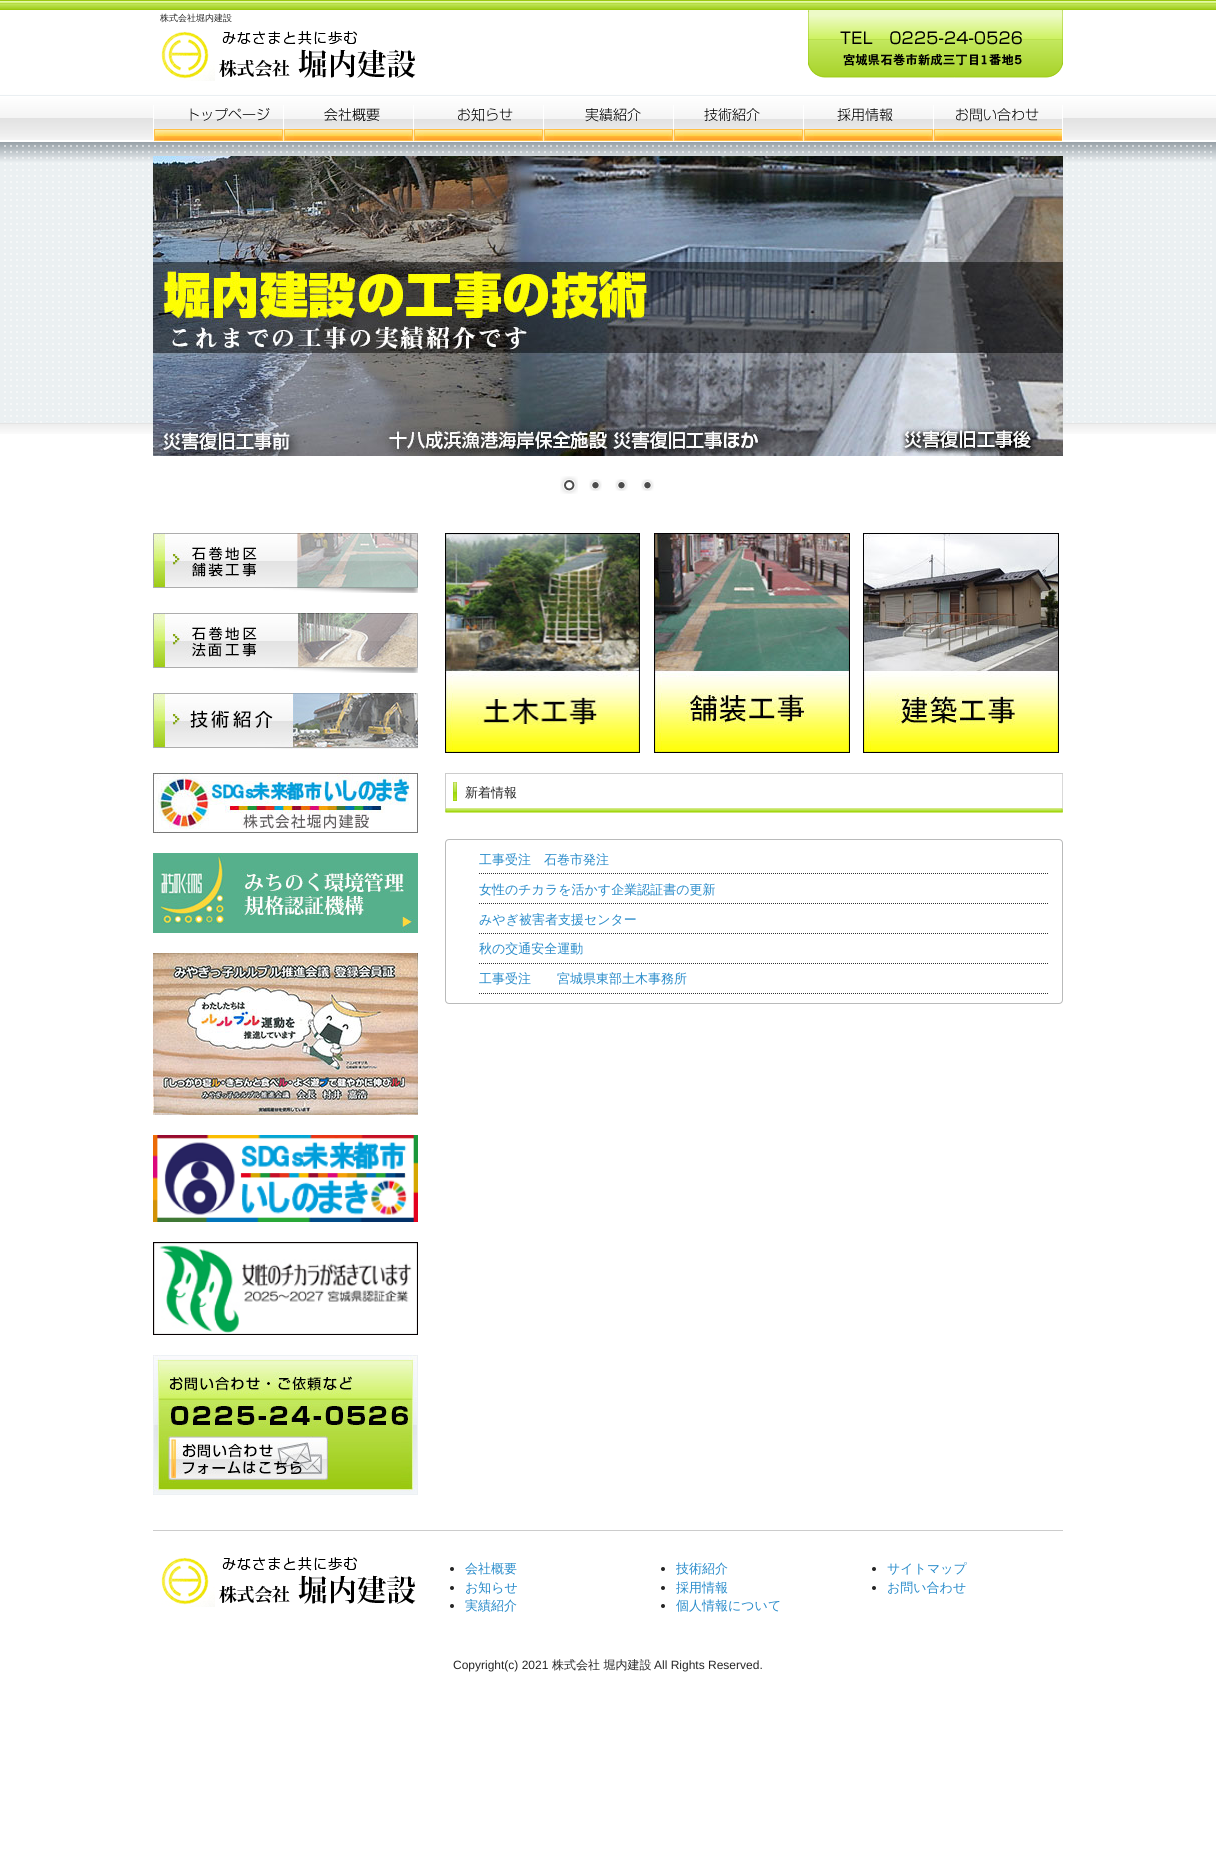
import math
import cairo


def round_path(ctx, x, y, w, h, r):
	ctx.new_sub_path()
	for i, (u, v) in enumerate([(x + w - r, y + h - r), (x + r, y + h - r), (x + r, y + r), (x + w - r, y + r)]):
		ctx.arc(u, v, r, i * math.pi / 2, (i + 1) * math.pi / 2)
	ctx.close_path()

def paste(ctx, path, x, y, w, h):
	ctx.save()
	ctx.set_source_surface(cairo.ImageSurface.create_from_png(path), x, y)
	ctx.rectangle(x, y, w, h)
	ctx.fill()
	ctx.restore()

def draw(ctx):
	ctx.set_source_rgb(1, 1, 1)
	ctx.paint()
	paste(ctx, 'media/1.png', 0, 0, 1216, 434)
	paste(ctx, 'media/2.png', 808, 10, 255, 68)
	ctx.select_font_face('WenQuanYi Zen Hei Medium')
	ctx.set_font_size(9)
	ctx.set_source_rgb(0.145, 0.145, 0.145)
	ctx.move_to(160, 21)
	ctx.show_text('株式会社堀内建設')
	paste(ctx, 'media/3.png', 161, 31, 255, 50)
	paste(ctx, 'media/4.png', 153, 105, 910, 36)
	paste(ctx, 'media/5.png', 153, 156, 910, 300)
	paste(ctx, 'media/6.png', 560, 476, 18, 18)
	paste(ctx, 'media/7.png', 589, 479, 13, 12)
	paste(ctx, 'media/7.png', 615, 479, 13, 12)
	paste(ctx, 'media/7.png', 641, 479, 13, 12)
	paste(ctx, 'media/8.png', 153, 533, 265, 60)
	paste(ctx, 'media/9.png', 153, 613, 265, 60)
	paste(ctx, 'media/10.png', 153, 693, 265, 56)
	paste(ctx, 'media/11.png', 153, 773, 265, 60)
	paste(ctx, 'media/12.png', 153, 853, 265, 80)
	paste(ctx, 'media/13.png', 153, 953, 265, 162)
	paste(ctx, 'media/14.png', 153, 1135, 265, 87)
	paste(ctx, 'media/15.png', 153, 1242, 265, 93)
	paste(ctx, 'media/16.png', 153, 1355, 265, 140)
	paste(ctx, 'media/17.png', 445, 533, 195, 220)
	paste(ctx, 'media/18.png', 654, 533, 196, 220)
	paste(ctx, 'media/19.png', 863, 533, 196, 220)
	paste(ctx, 'media/20.png', 445, 773, 618, 40)
	ctx.set_font_size(13)
	ctx.move_to(465, 797)
	ctx.show_text('新着情報')
	round_path(ctx, 445.5, 839.5, 617, 164, 3.5)
	ctx.set_source_rgb(0.725, 0.729, 0.729)
	ctx.set_line_width(1)
	ctx.stroke()
	ctx.new_path()
	ctx.move_to(479, 873.5)
	ctx.line_to(1049, 873.5)
	ctx.set_source_rgb(0.2, 0.2, 0.2)
	ctx.set_dash([1, 1])
	ctx.stroke()
	ctx.set_source_rgb(0.157, 0.545, 0.792)
	ctx.move_to(479, 864)
	ctx.show_text('工事受注　石巻市発注')
	ctx.new_path()
	ctx.move_to(479, 903.5)
	ctx.line_to(1049, 903.5)
	ctx.set_source_rgb(0.2, 0.2, 0.2)
	ctx.stroke()
	ctx.set_source_rgb(0.157, 0.545, 0.792)
	ctx.move_to(479, 894)
	ctx.show_text('女性のチカラを活かす企業認証書の更新')
	ctx.new_path()
	ctx.move_to(479, 933.5)
	ctx.line_to(1049, 933.5)
	ctx.set_source_rgb(0.2, 0.2, 0.2)
	ctx.stroke()
	ctx.set_source_rgb(0.157, 0.545, 0.792)
	ctx.move_to(479, 924)
	ctx.show_text('みやぎ被害者支援センター')
	ctx.new_path()
	ctx.move_to(479, 963.5)
	ctx.line_to(1049, 963.5)
	ctx.set_source_rgb(0.2, 0.2, 0.2)
	ctx.stroke()
	ctx.set_source_rgb(0.157, 0.545, 0.792)
	ctx.move_to(479, 953)
	ctx.show_text('秋の交通安全運動')
	ctx.new_path()
	ctx.move_to(479, 993.5)
	ctx.line_to(1049, 993.5)
	ctx.set_source_rgb(0.2, 0.2, 0.2)
	ctx.stroke()
	ctx.set_source_rgb(0.157, 0.545, 0.792)
	ctx.move_to(479, 983)
	ctx.show_text('工事受注　　宮城県東部土木事務所')
	ctx.set_source_rgb(0.8, 0.8, 0.8)
	ctx.rectangle(153, 1530, 910, 1)
	ctx.fill()
	paste(ctx, 'media/3.png', 161, 1557, 255, 50)
	ctx.set_source_rgb(0.145, 0.145, 0.145)
	ctx.arc(452, 1569, 2, 0, 2 * math.pi)
	ctx.fill()
	ctx.set_source_rgb(0.157, 0.545, 0.792)
	ctx.move_to(465, 1573)
	ctx.show_text('会社概要')
	ctx.set_source_rgb(0.145, 0.145, 0.145)
	ctx.new_path()
	ctx.arc(452, 1588, 2, 0, 2 * math.pi)
	ctx.fill()
	ctx.set_source_rgb(0.157, 0.545, 0.792)
	ctx.move_to(465, 1592)
	ctx.show_text('お知らせ')
	ctx.set_source_rgb(0.145, 0.145, 0.145)
	ctx.new_path()
	ctx.arc(452, 1606, 2, 0, 2 * math.pi)
	ctx.fill()
	ctx.set_source_rgb(0.157, 0.545, 0.792)
	ctx.move_to(465, 1610)
	ctx.show_text('実績紹介')
	ctx.set_source_rgb(0.145, 0.145, 0.145)
	ctx.new_path()
	ctx.arc(663, 1569, 2, 0, 2 * math.pi)
	ctx.fill()
	ctx.set_source_rgb(0.157, 0.545, 0.792)
	ctx.move_to(676, 1573)
	ctx.show_text('技術紹介')
	ctx.set_source_rgb(0.145, 0.145, 0.145)
	ctx.new_path()
	ctx.arc(663, 1588, 2, 0, 2 * math.pi)
	ctx.fill()
	ctx.set_source_rgb(0.157, 0.545, 0.792)
	ctx.move_to(676, 1592)
	ctx.show_text('採用情報')
	ctx.set_source_rgb(0.145, 0.145, 0.145)
	ctx.new_path()
	ctx.arc(663, 1606, 2, 0, 2 * math.pi)
	ctx.fill()
	ctx.set_source_rgb(0.157, 0.545, 0.792)
	ctx.move_to(676, 1610)
	ctx.show_text('個人情報について')
	ctx.set_source_rgb(0.145, 0.145, 0.145)
	ctx.new_path()
	ctx.arc(874, 1569, 2, 0, 2 * math.pi)
	ctx.fill()
	ctx.set_source_rgb(0.157, 0.545, 0.792)
	ctx.move_to(887, 1573)
	ctx.show_text('サイトマップ')
	ctx.set_source_rgb(0.145, 0.145, 0.145)
	ctx.new_path()
	ctx.arc(874, 1588, 2, 0, 2 * math.pi)
	ctx.fill()
	ctx.set_source_rgb(0.157, 0.545, 0.792)
	ctx.move_to(887, 1592)
	ctx.show_text('お問い合わせ')
	ctx.select_font_face('Liberation Sans')
	ctx.set_font_size(12)
	ctx.set_source_rgb(0.145, 0.145, 0.145)
	ctx.move_to(453, 1669)
	ctx.show_text('Copyright(c) 2021')
	ctx.select_font_face('WenQuanYi Zen Hei Medium')
	ctx.move_to(552, 1669)
	ctx.show_text('株式会社 堀内建設')
	ctx.select_font_face('Liberation Sans')
	ctx.move_to(654, 1669)
	ctx.show_text('All Rights Reserved.')


surface = cairo.ImageSurface(cairo.FORMAT_RGB24, 1216, 1855)
ctx = cairo.Context(surface)
options = cairo.FontOptions()
options.set_hint_metrics(cairo.HINT_METRICS_OFF)
options.set_hint_style(cairo.HINT_STYLE_NONE)
ctx.set_font_options(options)
ctx.set_miter_limit(4)
draw(ctx)
surface.write_to_png('image.png')
